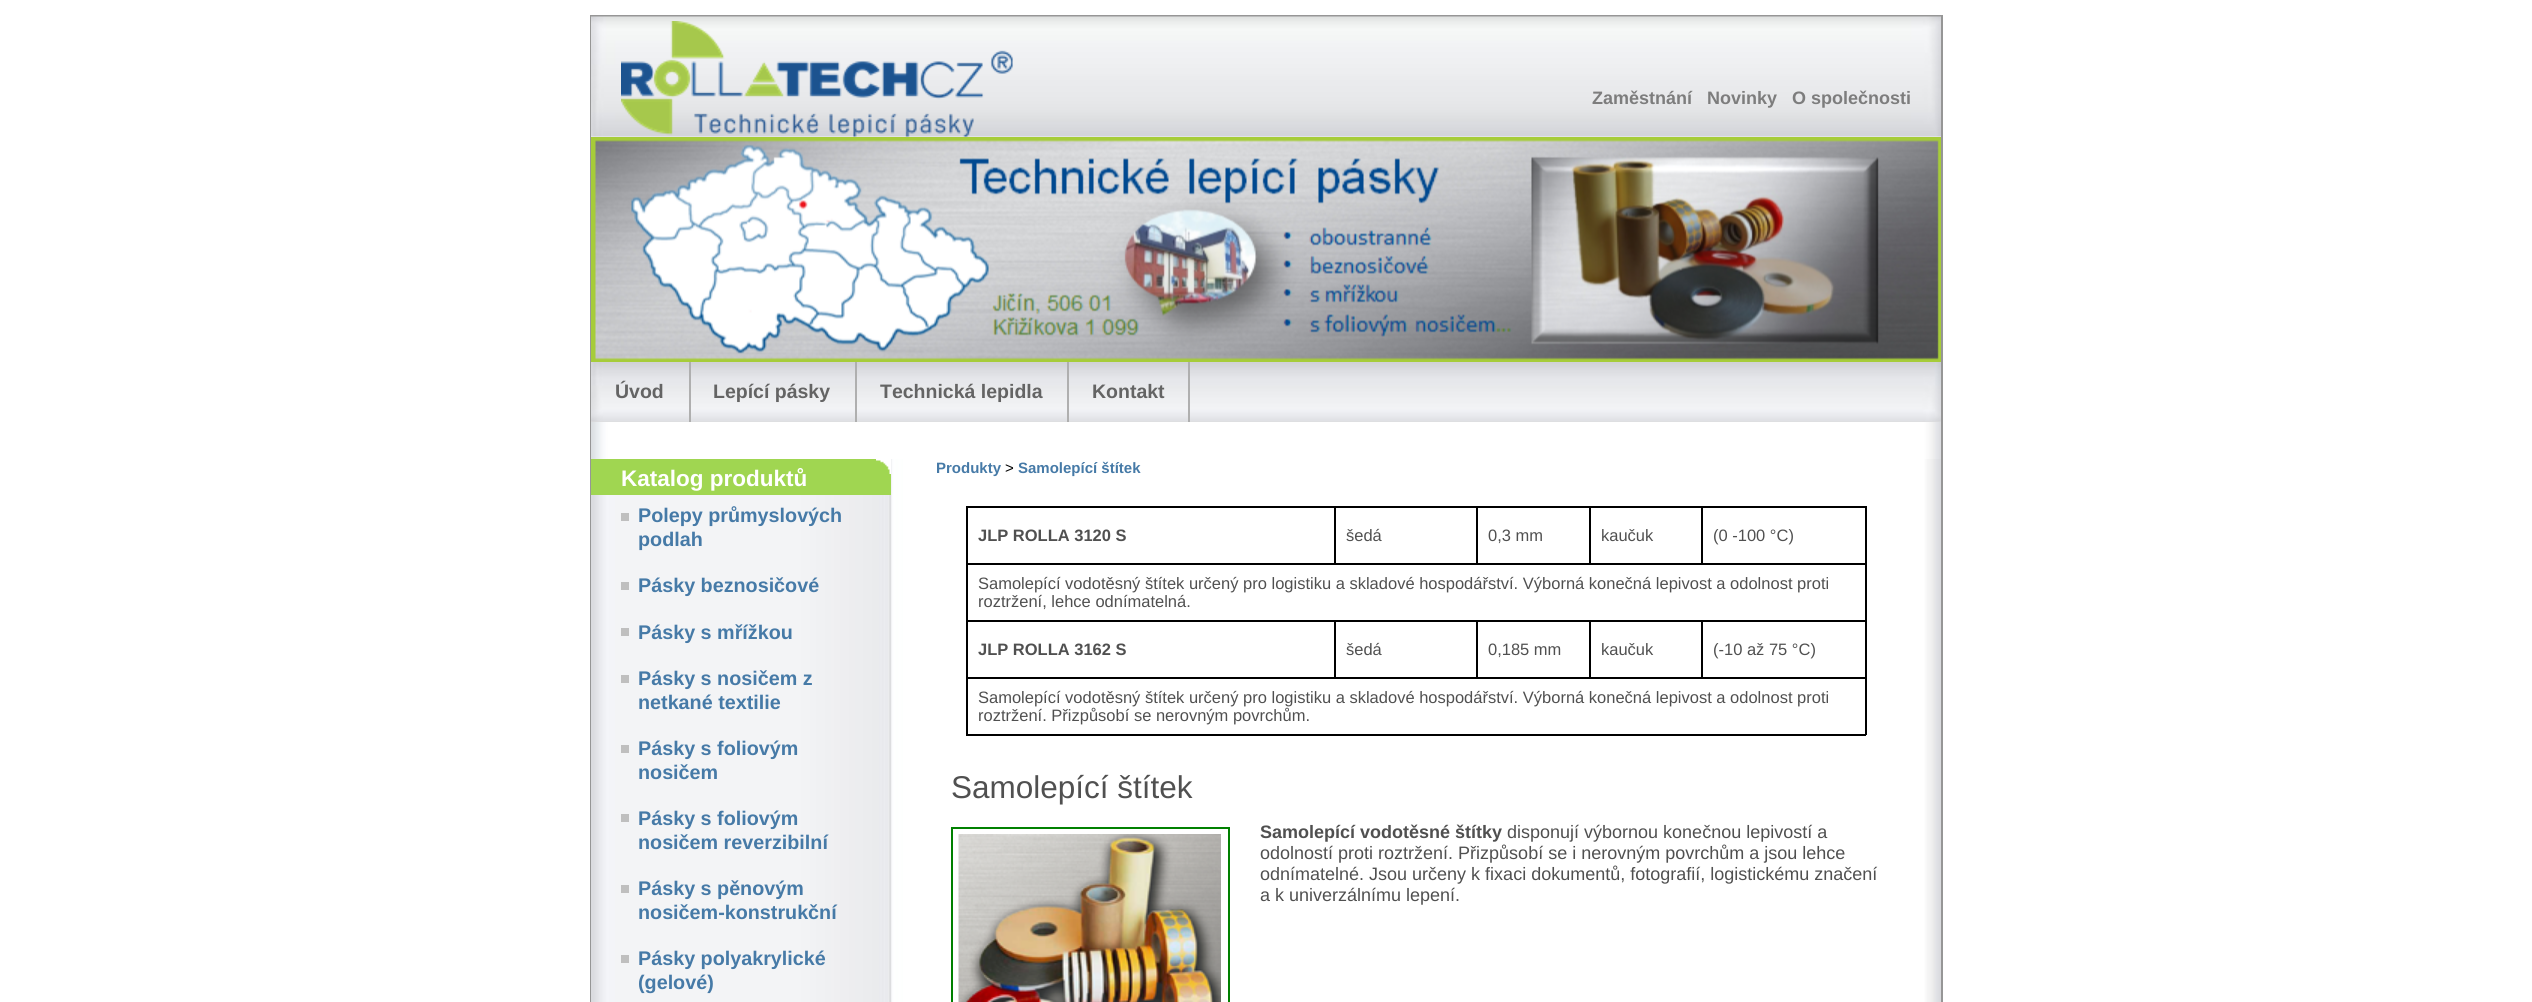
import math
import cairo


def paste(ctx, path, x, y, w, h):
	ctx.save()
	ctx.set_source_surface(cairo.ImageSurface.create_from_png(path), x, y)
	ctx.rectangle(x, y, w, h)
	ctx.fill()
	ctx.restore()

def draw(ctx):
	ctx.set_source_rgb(1, 1, 1)
	ctx.paint()
	ctx.rectangle(591, 16, 1351, 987)
	ctx.set_source_rgb(0.588, 0.588, 0.588)
	ctx.stroke()
	ctx.set_source_rgb(0.941, 0.941, 0.941)
	ctx.rectangle(591, 136, 1350, 1)
	ctx.fill()
	paste(ctx, 'media/1.png', 591, 16, 1350, 121)
	paste(ctx, 'media/2.png', 621, 21, 392, 116)
	ctx.select_font_face('Liberation Sans', cairo.FONT_SLANT_NORMAL, cairo.FONT_WEIGHT_BOLD)
	ctx.set_font_size(18)
	ctx.set_source_rgb(0.49, 0.49, 0.49)
	for x, y, s in [
		(1592, 104, 'Zaměstnání'),
		(1707, 104, 'Novinky'),
		(1792, 104, 'O společnosti'),
	]:
		ctx.move_to(x, y)
		ctx.show_text(s)
	paste(ctx, 'media/3.png', 591, 137, 1350, 225)
	ctx.set_source_rgb(0.863, 0.863, 0.863)
	ctx.rectangle(591, 421, 1350, 1)
	ctx.fill()
	paste(ctx, 'media/4.png', 591, 362, 1350, 60)
	ctx.set_source_rgb(0.686, 0.686, 0.686)
	ctx.rectangle(689, 362, 2, 60)
	ctx.fill()
	ctx.set_font_size(19.5)
	ctx.set_source_rgb(0.392, 0.392, 0.392)
	ctx.move_to(615, 398)
	ctx.show_text('Úvod')
	ctx.set_source_rgb(0.686, 0.686, 0.686)
	ctx.rectangle(855, 362, 2, 60)
	ctx.fill()
	ctx.set_source_rgb(0.392, 0.392, 0.392)
	ctx.move_to(713, 398)
	ctx.show_text('Lepící pásky')
	ctx.set_source_rgb(0.686, 0.686, 0.686)
	ctx.rectangle(1067, 362, 2, 60)
	ctx.fill()
	ctx.set_source_rgb(0.392, 0.392, 0.392)
	ctx.move_to(880, 398)
	ctx.show_text('Technická lepidla')
	ctx.set_source_rgb(0.686, 0.686, 0.686)
	ctx.rectangle(1188, 362, 2, 60)
	ctx.fill()
	ctx.set_source_rgb(0.392, 0.392, 0.392)
	ctx.move_to(1092, 398)
	ctx.show_text('Kontakt')
	paste(ctx, 'media/5.png', 591, 422, 1350, 37)
	paste(ctx, 'media/6.png', 591, 459, 1350, 543)
	ctx.set_source_rgb(0.627, 0.839, 0.318)
	ctx.rectangle(591, 459, 300, 36)
	ctx.fill()
	ctx.set_font_size(22.5)
	ctx.set_source_rgb(1, 1, 1)
	ctx.move_to(621, 486)
	ctx.show_text('Katalog produktů')
	paste(ctx, 'media/7.png', 876, 459, 15, 15)
	ctx.set_source_rgb(0.749, 0.749, 0.749)
	ctx.rectangle(621, 513, 8, 8)
	ctx.fill()
	ctx.set_font_size(19.75)
	ctx.set_source_rgb(0.275, 0.478, 0.655)
	ctx.move_to(638, 522)
	ctx.show_text('Polepy průmyslových')
	ctx.move_to(638, 546)
	ctx.show_text('podlah')
	ctx.set_source_rgb(0.749, 0.749, 0.749)
	ctx.rectangle(621, 582, 8, 8)
	ctx.fill()
	ctx.set_source_rgb(0.275, 0.478, 0.655)
	ctx.move_to(638, 592)
	ctx.show_text('Pásky beznosičové')
	ctx.set_source_rgb(0.749, 0.749, 0.749)
	ctx.rectangle(621, 628, 8, 8)
	ctx.fill()
	ctx.set_source_rgb(0.275, 0.478, 0.655)
	ctx.move_to(638, 639)
	ctx.show_text('Pásky s mřížkou')
	ctx.set_source_rgb(0.749, 0.749, 0.749)
	ctx.rectangle(621, 675, 8, 8)
	ctx.fill()
	ctx.set_source_rgb(0.275, 0.478, 0.655)
	ctx.move_to(638, 685)
	ctx.show_text('Pásky s nosičem z')
	ctx.move_to(638, 709)
	ctx.show_text('netkané textilie')
	ctx.set_source_rgb(0.749, 0.749, 0.749)
	ctx.rectangle(621, 745, 8, 8)
	ctx.fill()
	ctx.set_source_rgb(0.275, 0.478, 0.655)
	ctx.move_to(638, 755)
	ctx.show_text('Pásky s foliovým')
	ctx.move_to(638, 779)
	ctx.show_text('nosičem')
	ctx.set_source_rgb(0.749, 0.749, 0.749)
	ctx.rectangle(621, 814, 8, 8)
	ctx.fill()
	ctx.set_source_rgb(0.275, 0.478, 0.655)
	ctx.move_to(638, 825)
	ctx.show_text('Pásky s foliovým')
	ctx.move_to(638, 849)
	ctx.show_text('nosičem reverzibilní')
	ctx.set_source_rgb(0.749, 0.749, 0.749)
	ctx.rectangle(621, 885, 8, 8)
	ctx.fill()
	ctx.set_source_rgb(0.275, 0.478, 0.655)
	ctx.move_to(638, 895)
	ctx.show_text('Pásky s pěnovým')
	ctx.move_to(638, 919)
	ctx.show_text('nosičem-konstrukční')
	ctx.set_source_rgb(0.749, 0.749, 0.749)
	ctx.rectangle(621, 955, 8, 8)
	ctx.fill()
	ctx.set_source_rgb(0.275, 0.478, 0.655)
	ctx.move_to(638, 965)
	ctx.show_text('Pásky polyakrylické')
	ctx.move_to(638, 989)
	ctx.show_text('(gelové)')
	ctx.set_font_size(15)
	ctx.move_to(936, 473)
	ctx.show_text('Produkty')
	ctx.select_font_face('Liberation Sans')
	ctx.set_source_rgb(0, 0, 0)
	ctx.move_to(1005, 473)
	ctx.show_text('>')
	ctx.select_font_face('Liberation Sans', cairo.FONT_SLANT_NORMAL, cairo.FONT_WEIGHT_BOLD)
	ctx.set_source_rgb(0.275, 0.478, 0.655)
	ctx.move_to(1018, 473)
	ctx.show_text('Samolepící štítek')
	ctx.set_source_rgb(0, 0, 0)
	ctx.rectangle(1701, 506, 165, 2)
	ctx.rectangle(966, 563, 900, 2)
	ctx.rectangle(1701, 506, 2, 58)
	ctx.rectangle(1589, 506, 114, 2)
	ctx.rectangle(1589, 506, 2, 58)
	ctx.rectangle(1476, 506, 114, 2)
	ctx.rectangle(1476, 506, 2, 58)
	ctx.rectangle(1334, 506, 144, 2)
	ctx.rectangle(1334, 506, 2, 58)
	ctx.rectangle(966, 506, 369, 2)
	ctx.rectangle(1701, 620, 165, 2)
	ctx.rectangle(966, 677, 900, 2)
	ctx.rectangle(1701, 620, 2, 58)
	ctx.rectangle(1589, 620, 114, 2)
	ctx.rectangle(1589, 620, 2, 58)
	ctx.rectangle(1476, 620, 114, 2)
	ctx.rectangle(1476, 620, 2, 58)
	ctx.rectangle(1334, 620, 144, 2)
	ctx.rectangle(1334, 620, 2, 58)
	ctx.rectangle(966, 620, 369, 2)
	ctx.rectangle(1865, 677, 2, 58)
	ctx.rectangle(966, 734, 900, 2)
	ctx.rectangle(966, 677, 2, 58)
	ctx.rectangle(966, 620, 2, 58)
	ctx.rectangle(966, 563, 2, 58)
	ctx.rectangle(966, 506, 2, 58)
	ctx.fill()
	ctx.set_font_size(16.5)
	ctx.set_source_rgb(0.314, 0.314, 0.314)
	ctx.move_to(978, 541)
	ctx.show_text('JLP ROLLA 3120 S')
	ctx.select_font_face('Liberation Sans')
	for x, y, s in [
		(1346, 541, 'šedá'),
		(1488, 541, '0,3 mm'),
		(1601, 541, 'kaučuk'),
	]:
		ctx.move_to(x, y)
		ctx.show_text(s)
	ctx.set_source_rgb(0, 0, 0)
	ctx.rectangle(1865, 620, 2, 58)
	ctx.rectangle(1865, 563, 2, 58)
	ctx.rectangle(1865, 506, 2, 58)
	ctx.fill()
	ctx.set_source_rgb(0.314, 0.314, 0.314)
	for x, y, s in [
		(1713, 541, '(0 -100 °C)'),
		(978, 589, 'Samolepící vodotěsný štítek určený pro logistiku a skladové hospodářství. Výborná konečná lepivost a odolnost proti'),
		(978, 607, 'roztržení, lehce odnímatelná.'),
	]:
		ctx.move_to(x, y)
		ctx.show_text(s)
	ctx.select_font_face('Liberation Sans', cairo.FONT_SLANT_NORMAL, cairo.FONT_WEIGHT_BOLD)
	ctx.move_to(978, 655)
	ctx.show_text('JLP ROLLA 3162 S')
	ctx.select_font_face('Liberation Sans')
	for x, y, s in [
		(1346, 655, 'šedá'),
		(1488, 655, '0,185 mm'),
		(1601, 655, 'kaučuk'),
		(1713, 655, '(-10 až 75 °C)'),
		(978, 703, 'Samolepící vodotěsný štítek určený pro logistiku a skladové hospodářství. Výborná konečná lepivost a odolnost proti'),
		(978, 721, 'roztržení. Přizpůsobí se nerovným povrchům.'),
	]:
		ctx.move_to(x, y)
		ctx.show_text(s)
	ctx.set_font_size(31.5)
	ctx.move_to(951, 798)
	ctx.show_text('Samolepící štítek')
	ctx.rectangle(952, 828, 277, 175)
	ctx.set_source_rgb(0, 0.502, 0)
	ctx.stroke()
	paste(ctx, 'media/8.png', 958, 834, 263, 168)
	ctx.select_font_face('Liberation Sans', cairo.FONT_SLANT_NORMAL, cairo.FONT_WEIGHT_BOLD)
	ctx.set_font_size(18)
	ctx.set_source_rgb(0.314, 0.314, 0.314)
	ctx.move_to(1260, 838)
	ctx.show_text('Samolepící vodotěsné štítky')
	ctx.select_font_face('Liberation Sans')
	for x, y, s in [
		(1507, 838, 'disponují výbornou konečnou lepivostí a'),
		(1260, 859, 'odolností proti roztržení. Přizpůsobí se i nerovným povrchům a jsou lehce'),
		(1260, 880, 'odnímatelné. Jsou určeny k fixaci dokumentů, fotografií, logistickému značení'),
		(1260, 901, 'a k univerzálnímu lepení.'),
	]:
		ctx.move_to(x, y)
		ctx.show_text(s)


surface = cairo.ImageSurface(cairo.FORMAT_RGB24, 2532, 1002)
ctx = cairo.Context(surface)
options = cairo.FontOptions()
options.set_hint_metrics(cairo.HINT_METRICS_OFF)
options.set_hint_style(cairo.HINT_STYLE_NONE)
ctx.set_font_options(options)
ctx.set_miter_limit(4)
draw(ctx)
surface.write_to_png('image.png')
